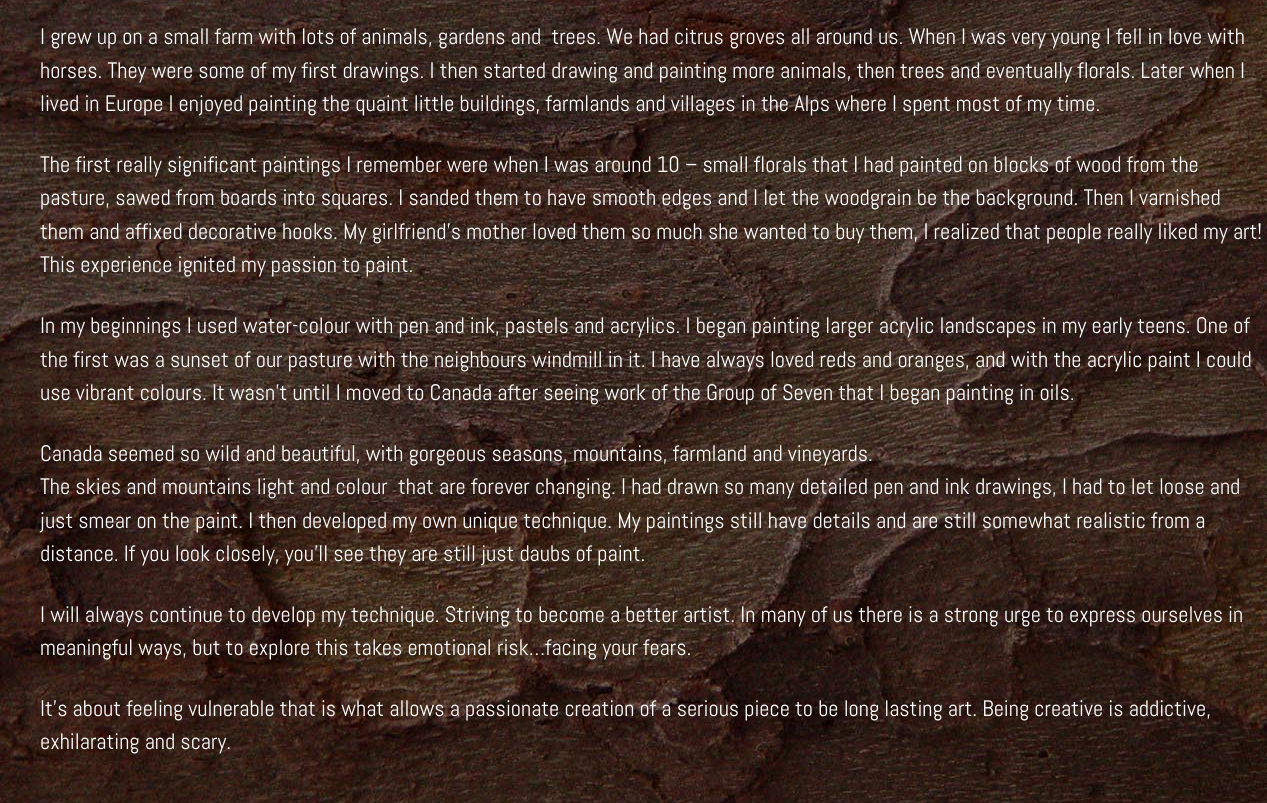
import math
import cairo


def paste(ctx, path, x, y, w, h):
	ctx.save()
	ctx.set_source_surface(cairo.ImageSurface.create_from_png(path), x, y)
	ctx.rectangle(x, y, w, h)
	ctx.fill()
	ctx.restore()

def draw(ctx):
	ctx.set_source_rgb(1, 1, 1)
	ctx.paint()
	paste(ctx, 'media/1.png', 0, 0, 1267, 803)
	ctx.select_font_face('Abel')
	ctx.set_font_size(22.4)
	ctx.set_source_rgb(1, 1, 1)
	for x, y, s in [
		(40, 44, 'I grew up on a small farm with lots of animals, gardens and  trees. We had citrus groves all around us. When I was very young I fell in love with'),
		(40, 78, 'horses. They were some of my first drawings. I then started drawing and painting more animals, then trees and eventually florals. Later when I'),
		(40, 111, 'lived in Europe I enjoyed painting the quaint little buildings, farmlands and villages in the Alps where I spent most of my time.'),
		(40, 172, 'The first really significant paintings I remember were when I was around 10 – small florals that I had painted on blocks of wood from the'),
		(40, 205, 'pasture, sawed from boards into squares. I sanded them to have smooth edges and I let the woodgrain be the background. Then I varnished'),
		(40, 239, 'them and affixed decorative hooks. My girlfriend’s mother loved them so much she wanted to buy them, I realized that people really liked my art!'),
		(40, 272, 'This experience ignited my passion to paint.'),
		(40, 333, 'In my beginnings I used water-colour with pen and ink, pastels and acrylics. I began painting larger acrylic landscapes in my early teens. One of'),
		(40, 367, 'the first was a sunset of our pasture with the neighbours windmill in it. I have always loved reds and oranges, and with the acrylic paint I could'),
		(40, 400, 'use vibrant colours. It wasn’t until I moved to Canada after seeing work of the Group of Seven that I began painting in oils.'),
		(40, 461, 'Canada seemed so wild and beautiful, with gorgeous seasons, mountains, farmland and vineyards.'),
		(40, 494, 'The skies and mountains light and colour  that are forever changing. I had drawn so many detailed pen and ink drawings, I had to let loose and'),
		(40, 528, 'just smear on the paint. I then developed my own unique technique. My paintings still have details and are still somewhat realistic from a'),
		(40, 561, 'distance. If you look closely, you’ll see they are still just daubs of paint.'),
		(40, 622, 'I will always continue to develop my technique. Striving to become a better artist. In many of us there is a strong urge to express ourselves in'),
		(40, 655, 'meaningful ways, but to explore this takes emotional risk…facing your fears.'),
		(40, 716, 'It’s about feeling vulnerable that is what allows a passionate creation of a serious piece to be long lasting art. Being creative is addictive,'),
		(40, 749, 'exhilarating and scary.'),
	]:
		ctx.move_to(x, y)
		ctx.show_text(s)


surface = cairo.ImageSurface(cairo.FORMAT_RGB24, 1267, 803)
ctx = cairo.Context(surface)
options = cairo.FontOptions()
options.set_hint_metrics(cairo.HINT_METRICS_OFF)
options.set_hint_style(cairo.HINT_STYLE_NONE)
ctx.set_font_options(options)
ctx.set_miter_limit(4)
draw(ctx)
surface.write_to_png('image.png')
